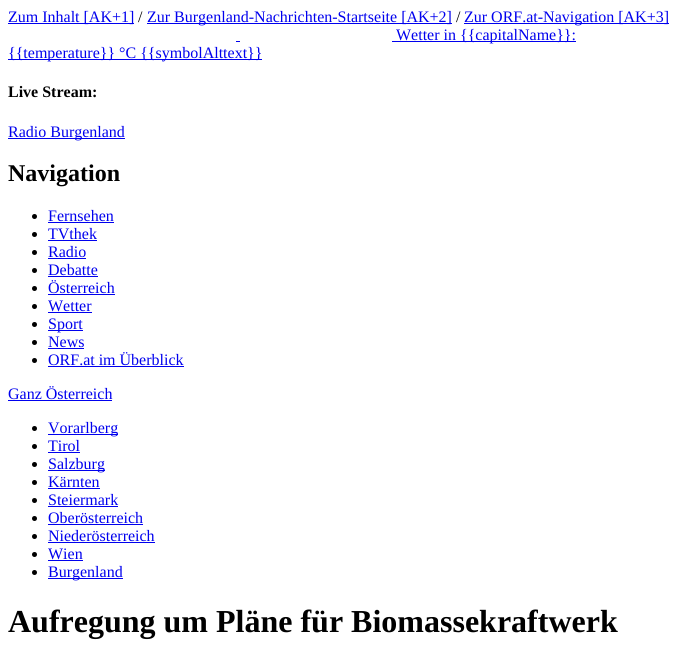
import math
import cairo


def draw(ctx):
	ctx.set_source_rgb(1, 1, 1)
	ctx.paint()
	ctx.set_source_rgb(0, 0, 0.933)
	ctx.rectangle(8, 23, 126, 1)
	ctx.fill()
	ctx.select_font_face('Liberation Serif')
	ctx.set_font_size(16)
	ctx.move_to(8, 22)
	ctx.show_text('Zum Inhalt [AK+1]')
	ctx.set_source_rgb(0, 0, 0)
	ctx.move_to(138, 22)
	ctx.show_text('/')
	ctx.set_source_rgb(0, 0, 0.933)
	ctx.rectangle(147, 23, 305, 1)
	ctx.fill()
	ctx.move_to(147, 22)
	ctx.show_text('Zur Burgenland-Nachrichten-Startseite [AK+2]')
	ctx.set_source_rgb(0, 0, 0)
	ctx.move_to(456, 22)
	ctx.show_text('/')
	ctx.set_source_rgb(0, 0, 0.933)
	ctx.rectangle(464, 23, 205, 1)
	ctx.fill()
	ctx.move_to(464, 22)
	ctx.show_text('Zur ORF.at-Navigation [AK+3]')
	ctx.rectangle(236, 41, 4, 1)
	ctx.fill()
	ctx.rectangle(392, 41, 184, 1)
	ctx.fill()
	ctx.move_to(396, 40)
	ctx.show_text('Wetter in {{capitalName}}:')
	ctx.rectangle(8, 59, 254, 1)
	ctx.fill()
	ctx.move_to(8, 58)
	ctx.show_text('{{temperature}} °C {{symbolAlttext}}')
	ctx.select_font_face('Liberation Serif', cairo.FONT_SLANT_NORMAL, cairo.FONT_WEIGHT_BOLD)
	ctx.set_source_rgb(0, 0, 0)
	ctx.move_to(8, 97)
	ctx.show_text('Live Stream:')
	ctx.set_source_rgb(0, 0, 0.933)
	ctx.rectangle(8, 138, 117, 1)
	ctx.fill()
	ctx.select_font_face('Liberation Serif')
	ctx.move_to(8, 137)
	ctx.show_text('Radio Burgenland')
	ctx.select_font_face('Liberation Serif', cairo.FONT_SLANT_NORMAL, cairo.FONT_WEIGHT_BOLD)
	ctx.set_font_size(24)
	ctx.set_source_rgb(0, 0, 0)
	ctx.move_to(8, 181)
	ctx.show_text('Navigation')
	ctx.new_path()
	ctx.arc(34.5, 216.5, 2.5, 0, 2 * math.pi)
	ctx.fill()
	ctx.select_font_face('Liberation Serif')
	ctx.set_font_size(16)
	ctx.set_source_rgb(0, 0, 0.933)
	ctx.move_to(48, 221)
	ctx.show_text('Fernsehen')
	ctx.rectangle(48, 222, 66, 1)
	ctx.fill()
	ctx.set_source_rgb(0, 0, 0)
	ctx.arc(34.5, 234.5, 2.5, 0, 2 * math.pi)
	ctx.fill()
	ctx.set_source_rgb(0, 0, 0.933)
	ctx.move_to(48, 239)
	ctx.show_text('TVthek')
	ctx.rectangle(48, 240, 49, 1)
	ctx.fill()
	ctx.set_source_rgb(0, 0, 0)
	ctx.arc(34.5, 252.5, 2.5, 0, 2 * math.pi)
	ctx.fill()
	ctx.set_source_rgb(0, 0, 0.933)
	ctx.move_to(48, 257)
	ctx.show_text('Radio')
	ctx.rectangle(48, 258, 38, 1)
	ctx.fill()
	ctx.set_source_rgb(0, 0, 0)
	ctx.arc(34.5, 270.5, 2.5, 0, 2 * math.pi)
	ctx.fill()
	ctx.set_source_rgb(0, 0, 0.933)
	ctx.move_to(48, 275)
	ctx.show_text('Debatte')
	ctx.rectangle(48, 276, 50, 1)
	ctx.fill()
	ctx.set_source_rgb(0, 0, 0)
	ctx.arc(34.5, 288.5, 2.5, 0, 2 * math.pi)
	ctx.fill()
	ctx.set_source_rgb(0, 0, 0.933)
	ctx.move_to(48, 293)
	ctx.show_text('Österreich')
	ctx.rectangle(48, 294, 67, 1)
	ctx.fill()
	ctx.set_source_rgb(0, 0, 0)
	ctx.arc(34.5, 306.5, 2.5, 0, 2 * math.pi)
	ctx.fill()
	ctx.set_source_rgb(0, 0, 0.933)
	ctx.move_to(48, 311)
	ctx.show_text('Wetter')
	ctx.rectangle(48, 312, 44, 1)
	ctx.fill()
	ctx.set_source_rgb(0, 0, 0)
	ctx.arc(34.5, 324.5, 2.5, 0, 2 * math.pi)
	ctx.fill()
	ctx.set_source_rgb(0, 0, 0.933)
	ctx.rectangle(48, 330, 35, 1)
	ctx.fill()
	ctx.move_to(48, 329)
	ctx.show_text('Sport')
	ctx.set_source_rgb(0, 0, 0)
	ctx.new_path()
	ctx.arc(34.5, 342.5, 2.5, 0, 2 * math.pi)
	ctx.fill()
	ctx.set_source_rgb(0, 0, 0.933)
	ctx.move_to(48, 347)
	ctx.show_text('News')
	ctx.rectangle(48, 348, 36, 1)
	ctx.fill()
	ctx.set_source_rgb(0, 0, 0)
	ctx.arc(34.5, 360.5, 2.5, 0, 2 * math.pi)
	ctx.fill()
	ctx.set_source_rgb(0, 0, 0.933)
	ctx.move_to(48, 365)
	ctx.show_text('ORF.at im Überblick')
	ctx.rectangle(48, 366, 136, 1)
	ctx.fill()
	ctx.move_to(8, 399)
	ctx.show_text('Ganz Österreich')
	ctx.rectangle(8, 400, 104, 1)
	ctx.fill()
	ctx.set_source_rgb(0, 0, 0)
	ctx.arc(34.5, 428.5, 2.5, 0, 2 * math.pi)
	ctx.fill()
	ctx.set_source_rgb(0, 0, 0.933)
	ctx.rectangle(48, 434, 70, 1)
	ctx.fill()
	ctx.move_to(48, 433)
	ctx.show_text('Vorarlberg')
	ctx.set_source_rgb(0, 0, 0)
	ctx.new_path()
	ctx.arc(34.5, 446.5, 2.5, 0, 2 * math.pi)
	ctx.fill()
	ctx.set_source_rgb(0, 0, 0.933)
	ctx.move_to(48, 451)
	ctx.show_text('Tirol')
	ctx.rectangle(48, 452, 32, 1)
	ctx.fill()
	ctx.set_source_rgb(0, 0, 0)
	ctx.arc(34.5, 464.5, 2.5, 0, 2 * math.pi)
	ctx.fill()
	ctx.set_source_rgb(0, 0, 0.933)
	ctx.rectangle(48, 470, 57, 1)
	ctx.fill()
	ctx.move_to(48, 469)
	ctx.show_text('Salzburg')
	ctx.set_source_rgb(0, 0, 0)
	ctx.new_path()
	ctx.arc(34.5, 482.5, 2.5, 0, 2 * math.pi)
	ctx.fill()
	ctx.set_source_rgb(0, 0, 0.933)
	ctx.move_to(48, 487)
	ctx.show_text('Kärnten')
	ctx.rectangle(48, 488, 52, 1)
	ctx.fill()
	ctx.set_source_rgb(0, 0, 0)
	ctx.arc(34.5, 500.5, 2.5, 0, 2 * math.pi)
	ctx.fill()
	ctx.set_source_rgb(0, 0, 0.933)
	ctx.move_to(48, 505)
	ctx.show_text('Steiermark')
	ctx.rectangle(48, 506, 70, 1)
	ctx.fill()
	ctx.set_source_rgb(0, 0, 0)
	ctx.arc(34.5, 518.5, 2.5, 0, 2 * math.pi)
	ctx.fill()
	ctx.set_source_rgb(0, 0, 0.933)
	ctx.move_to(48, 523)
	ctx.show_text('Oberösterreich')
	ctx.rectangle(48, 524, 95, 1)
	ctx.fill()
	ctx.set_source_rgb(0, 0, 0)
	ctx.arc(34.5, 536.5, 2.5, 0, 2 * math.pi)
	ctx.fill()
	ctx.set_source_rgb(0, 0, 0.933)
	ctx.move_to(48, 541)
	ctx.show_text('Niederösterreich')
	ctx.rectangle(48, 542, 107, 1)
	ctx.fill()
	ctx.set_source_rgb(0, 0, 0)
	ctx.arc(34.5, 554.5, 2.5, 0, 2 * math.pi)
	ctx.fill()
	ctx.set_source_rgb(0, 0, 0.933)
	ctx.move_to(48, 559)
	ctx.show_text('Wien')
	ctx.rectangle(48, 560, 35, 1)
	ctx.fill()
	ctx.set_source_rgb(0, 0, 0)
	ctx.arc(34.5, 572.5, 2.5, 0, 2 * math.pi)
	ctx.fill()
	ctx.set_source_rgb(0, 0, 0.933)
	ctx.rectangle(48, 578, 75, 1)
	ctx.fill()
	ctx.move_to(48, 577)
	ctx.show_text('Burgenland')
	ctx.select_font_face('Liberation Serif', cairo.FONT_SLANT_NORMAL, cairo.FONT_WEIGHT_BOLD)
	ctx.set_font_size(32)
	ctx.set_source_rgb(0, 0, 0)
	ctx.move_to(8, 632)
	ctx.show_text('Aufregung um Pläne für Biomassekraftwerk')


surface = cairo.ImageSurface(cairo.FORMAT_RGB24, 688, 654)
ctx = cairo.Context(surface)
options = cairo.FontOptions()
options.set_hint_metrics(cairo.HINT_METRICS_OFF)
options.set_hint_style(cairo.HINT_STYLE_NONE)
ctx.set_font_options(options)
ctx.set_miter_limit(4)
draw(ctx)
surface.write_to_png('image.png')
